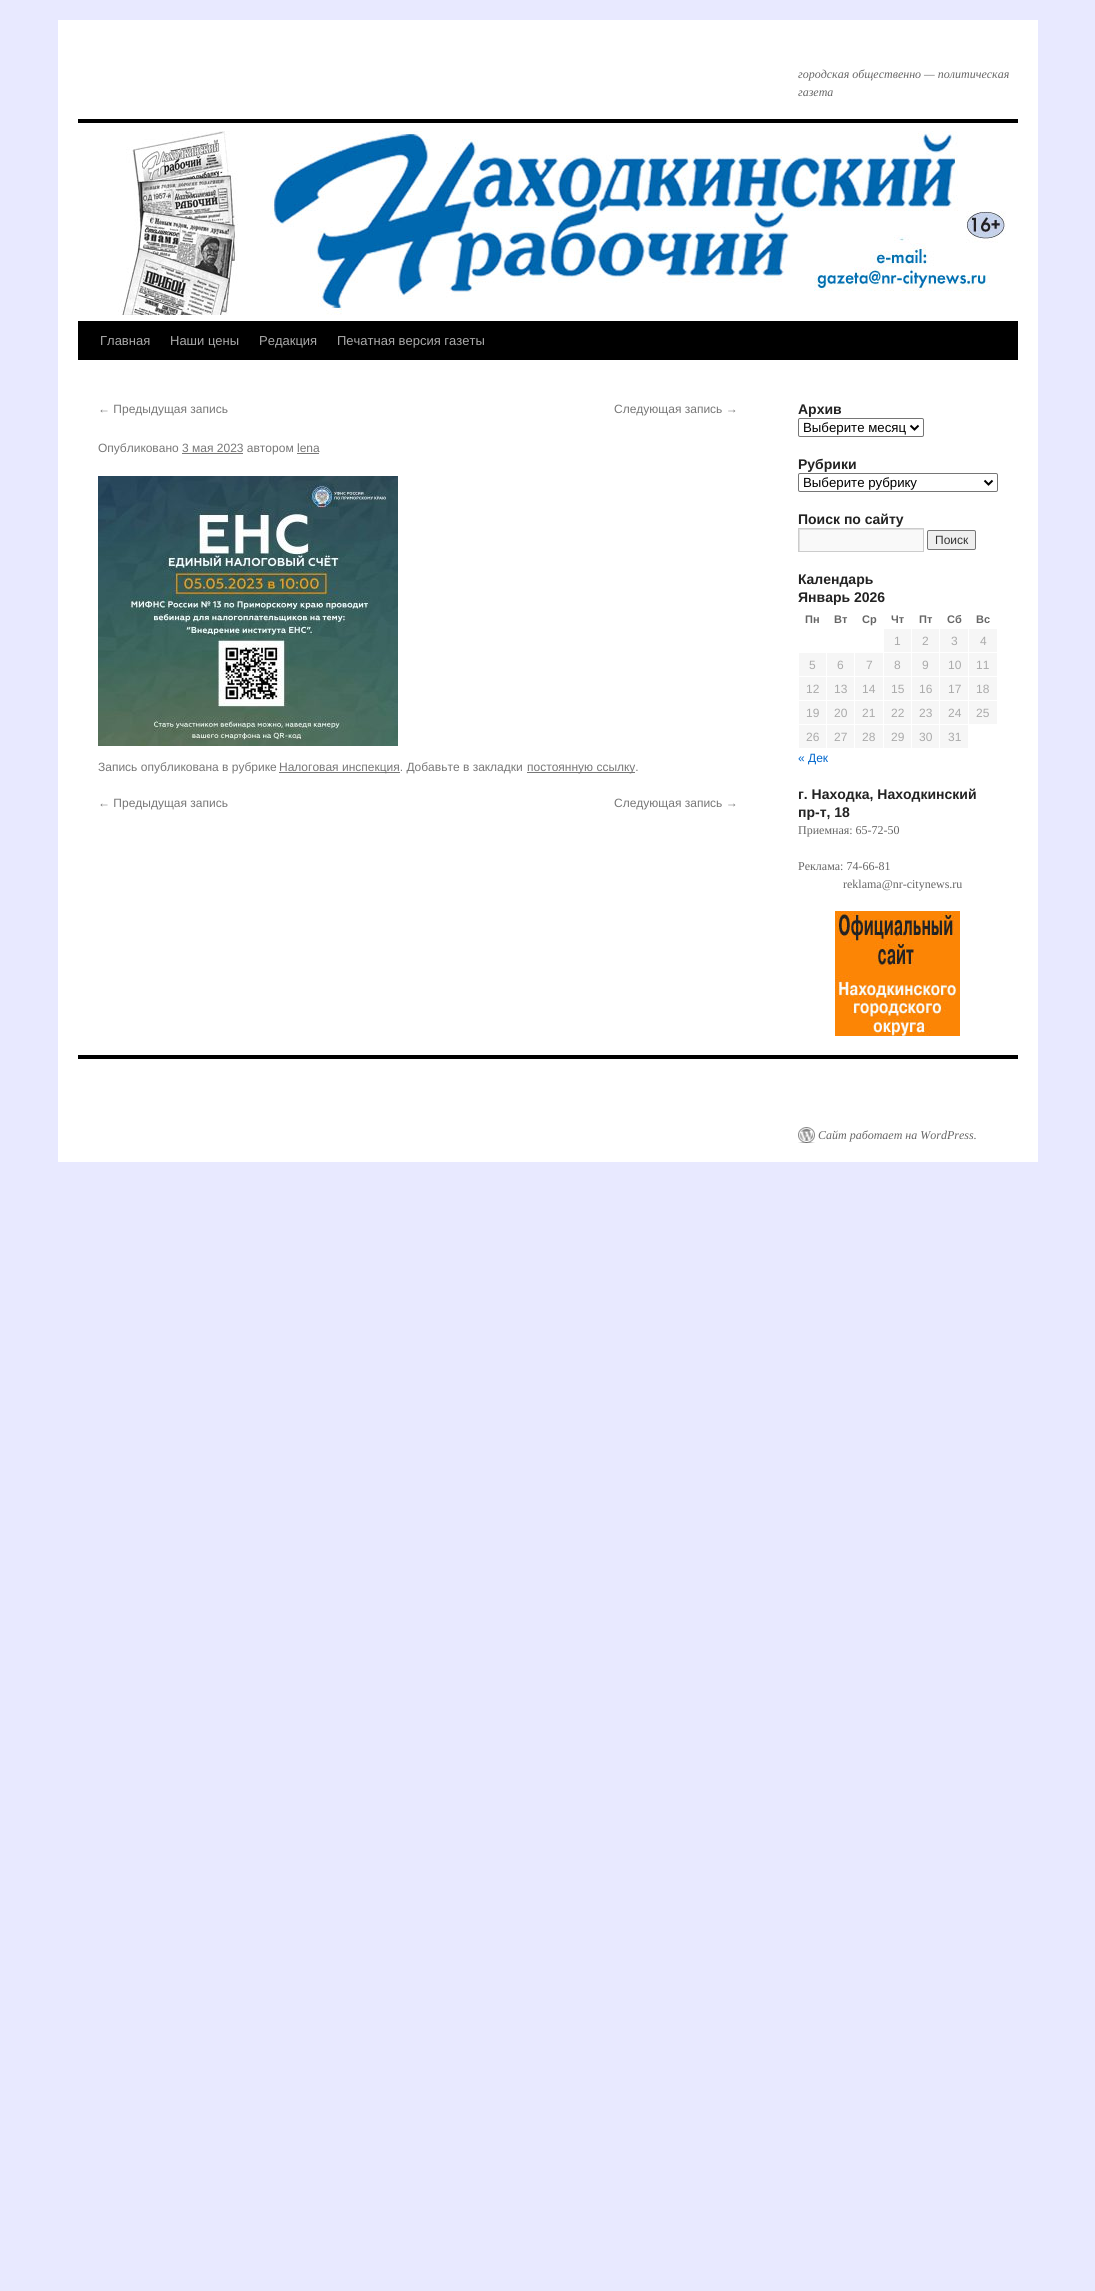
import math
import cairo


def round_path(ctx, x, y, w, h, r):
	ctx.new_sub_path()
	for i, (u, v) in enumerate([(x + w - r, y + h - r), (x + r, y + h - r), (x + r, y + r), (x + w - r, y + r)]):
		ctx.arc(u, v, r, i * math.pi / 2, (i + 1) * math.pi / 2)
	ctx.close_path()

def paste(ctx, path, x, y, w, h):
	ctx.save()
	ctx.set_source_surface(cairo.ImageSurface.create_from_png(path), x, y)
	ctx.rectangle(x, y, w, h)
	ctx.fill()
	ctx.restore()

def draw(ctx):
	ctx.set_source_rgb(0.91, 0.914, 1)
	ctx.paint()
	ctx.set_source_rgb(1, 1, 1)
	ctx.rectangle(58, 20, 980, 1142)
	ctx.fill()
	ctx.select_font_face('Liberation Serif', cairo.FONT_SLANT_ITALIC)
	ctx.set_font_size(12)
	ctx.set_source_rgb(0.4, 0.4, 0.4)
	ctx.move_to(798, 78)
	ctx.show_text('городская общественно — политическая')
	ctx.move_to(798, 96)
	ctx.show_text('газета')
	ctx.set_source_rgb(0, 0, 0)
	ctx.rectangle(78, 119, 940, 4)
	ctx.fill()
	ctx.rectangle(78, 321, 940, 39)
	ctx.fill()
	paste(ctx, 'media/1.png', 118, 131, 888, 184)
	ctx.select_font_face('Liberation Sans')
	ctx.set_font_size(13)
	ctx.set_source_rgb(0.667, 0.667, 0.667)
	for x, y, s in [
		(100, 345, 'Главная'),
		(170, 345, 'Наши цены'),
		(259, 345, 'Редакция'),
		(337, 345, 'Печатная версия газеты'),
	]:
		ctx.move_to(x, y)
		ctx.show_text(s)
	ctx.set_font_size(12)
	ctx.set_source_rgb(0.467, 0.467, 0.467)
	for x, y, s in [
		(98, 413, '← Предыдущая запись'),
		(614, 413, 'Следующая запись →'),
		(98, 452, 'Опубликовано 3 мая 2023 автором lena'),
	]:
		ctx.move_to(x, y)
		ctx.show_text(s)
	ctx.rectangle(182, 453, 61, 1)
	ctx.fill()
	ctx.rectangle(297, 453, 22, 1)
	ctx.fill()
	paste(ctx, 'media/2.png', 98, 476, 300, 270)
	ctx.move_to(98, 771)
	ctx.show_text('Запись опубликована в рубрике')
	ctx.rectangle(279, 772, 121, 1)
	ctx.fill()
	ctx.move_to(279, 771)
	ctx.show_text('Налоговая инспекция. Добавьте в закладки')
	ctx.rectangle(527, 772, 108, 1)
	ctx.fill()
	for x, y, s in [
		(527, 771, 'постоянную ссылку.'),
		(98, 807, '← Предыдущая запись'),
		(614, 807, 'Следующая запись →'),
	]:
		ctx.move_to(x, y)
		ctx.show_text(s)
	ctx.select_font_face('Liberation Sans', cairo.FONT_SLANT_NORMAL, cairo.FONT_WEIGHT_BOLD)
	ctx.set_font_size(14)
	ctx.set_source_rgb(0.133, 0.133, 0.133)
	ctx.move_to(798, 414)
	ctx.show_text('Архив')
	round_path(ctx, 798.5, 418.5, 125, 18, 1.5)
	ctx.set_source_rgb(0.463, 0.463, 0.463)
	ctx.set_line_width(1)
	ctx.stroke()
	ctx.new_path()
	ctx.move_to(910.5, 425.5)
	ctx.line_to(914.5, 429.5)
	ctx.line_to(918.5, 425.5)
	ctx.set_source_rgb(0, 0, 0)
	ctx.set_line_width(2)
	ctx.stroke()
	ctx.select_font_face('Liberation Sans')
	ctx.set_font_size(13.25)
	ctx.move_to(803, 432)
	ctx.show_text('Выберите месяц')
	ctx.select_font_face('Liberation Sans', cairo.FONT_SLANT_NORMAL, cairo.FONT_WEIGHT_BOLD)
	ctx.set_font_size(14)
	ctx.set_source_rgb(0.133, 0.133, 0.133)
	ctx.move_to(798, 469)
	ctx.show_text('Рубрики')
	round_path(ctx, 798.5, 473.5, 199, 18, 1.5)
	ctx.set_source_rgb(0.463, 0.463, 0.463)
	ctx.set_line_width(1)
	ctx.stroke()
	ctx.new_path()
	ctx.move_to(984.5, 480.5)
	ctx.line_to(988.5, 484.5)
	ctx.line_to(992.5, 480.5)
	ctx.set_source_rgb(0, 0, 0)
	ctx.set_line_width(2)
	ctx.stroke()
	ctx.select_font_face('Liberation Sans')
	ctx.set_font_size(13.25)
	ctx.move_to(803, 487)
	ctx.show_text('Выберите рубрику')
	ctx.select_font_face('Liberation Sans', cairo.FONT_SLANT_NORMAL, cairo.FONT_WEIGHT_BOLD)
	ctx.set_font_size(14)
	ctx.set_source_rgb(0.133, 0.133, 0.133)
	ctx.move_to(798, 524)
	ctx.show_text('Поиск по сайту')
	ctx.set_source_rgb(0.976, 0.976, 0.976)
	ctx.rectangle(800, 530, 123, 21)
	ctx.fill()
	ctx.save()
	ctx.rectangle(799, 529, 124, 22)
	ctx.clip()
	ctx.set_source_rgb(0.878, 0.878, 0.878)
	ctx.set_fill_rule(cairo.FILL_RULE_EVEN_ODD)
	ctx.new_path()
	ctx.move_to(700, 430)
	ctx.line_to(1022, 430)
	ctx.line_to(1022, 650)
	ctx.line_to(700, 650)
	ctx.close_path()
	ctx.move_to(800, 530)
	ctx.line_to(924, 530)
	ctx.line_to(924, 552)
	ctx.line_to(800, 552)
	ctx.close_path()
	ctx.fill()
	ctx.restore()
	ctx.rectangle(798.5, 528.5, 125, 23)
	ctx.set_source_rgb(0.8, 0.8, 0.8)
	ctx.set_line_width(1)
	ctx.stroke()
	ctx.set_source_rgb(0.937, 0.937, 0.937)
	round_path(ctx, 927.5, 530.5, 48, 19, 1.5)
	ctx.fill_preserve()
	ctx.set_source_rgb(0.463, 0.463, 0.463)
	ctx.stroke()
	ctx.select_font_face('Liberation Sans')
	ctx.set_font_size(12)
	ctx.set_source_rgb(0.2, 0.2, 0.2)
	ctx.move_to(935, 544)
	ctx.show_text('Поиск')
	ctx.select_font_face('Liberation Sans', cairo.FONT_SLANT_NORMAL, cairo.FONT_WEIGHT_BOLD)
	ctx.set_font_size(14)
	ctx.set_source_rgb(0.133, 0.133, 0.133)
	ctx.move_to(798, 584)
	ctx.show_text('Календарь')
	ctx.move_to(798, 602)
	ctx.show_text('Январь 2026')
	ctx.set_font_size(11)
	ctx.set_source_rgb(0.4, 0.4, 0.4)
	for x, y, s in [
		(805, 623, 'Пн'),
		(834, 623, 'Вт'),
		(862, 623, 'Ср'),
		(891, 623, 'Чт'),
		(919, 623, 'Пт'),
		(947, 623, 'Сб'),
		(976, 623, 'Вс'),
	]:
		ctx.move_to(x, y)
		ctx.show_text(s)
	ctx.set_source_rgb(0.961, 0.961, 0.961)
	ctx.rectangle(884, 629, 27, 23)
	ctx.fill()
	ctx.select_font_face('Liberation Sans')
	ctx.set_font_size(12)
	ctx.set_source_rgb(0.667, 0.667, 0.667)
	ctx.move_to(894, 645)
	ctx.show_text('1')
	ctx.set_source_rgb(0.961, 0.961, 0.961)
	ctx.rectangle(912, 629, 27, 23)
	ctx.fill()
	ctx.set_source_rgb(0.667, 0.667, 0.667)
	ctx.move_to(922, 645)
	ctx.show_text('2')
	ctx.set_source_rgb(0.961, 0.961, 0.961)
	ctx.rectangle(940, 629, 28, 23)
	ctx.fill()
	ctx.set_source_rgb(0.667, 0.667, 0.667)
	ctx.move_to(951, 645)
	ctx.show_text('3')
	ctx.set_source_rgb(0.961, 0.961, 0.961)
	ctx.rectangle(969, 629, 28, 23)
	ctx.fill()
	ctx.set_source_rgb(0.667, 0.667, 0.667)
	ctx.move_to(980, 645)
	ctx.show_text('4')
	ctx.set_source_rgb(0.961, 0.961, 0.961)
	ctx.rectangle(799, 653, 27, 23)
	ctx.fill()
	ctx.set_source_rgb(0.667, 0.667, 0.667)
	ctx.move_to(809, 669)
	ctx.show_text('5')
	ctx.set_source_rgb(0.961, 0.961, 0.961)
	ctx.rectangle(827, 653, 27, 23)
	ctx.fill()
	ctx.set_source_rgb(0.667, 0.667, 0.667)
	ctx.move_to(837, 669)
	ctx.show_text('6')
	ctx.set_source_rgb(0.961, 0.961, 0.961)
	ctx.rectangle(855, 653, 28, 23)
	ctx.fill()
	ctx.set_source_rgb(0.667, 0.667, 0.667)
	ctx.move_to(866, 669)
	ctx.show_text('7')
	ctx.set_source_rgb(0.961, 0.961, 0.961)
	ctx.rectangle(884, 653, 27, 23)
	ctx.fill()
	ctx.set_source_rgb(0.667, 0.667, 0.667)
	ctx.move_to(894, 669)
	ctx.show_text('8')
	ctx.set_source_rgb(0.961, 0.961, 0.961)
	ctx.rectangle(912, 653, 27, 23)
	ctx.fill()
	ctx.set_source_rgb(0.667, 0.667, 0.667)
	ctx.move_to(922, 669)
	ctx.show_text('9')
	ctx.set_source_rgb(0.961, 0.961, 0.961)
	ctx.rectangle(940, 653, 28, 23)
	ctx.fill()
	ctx.set_source_rgb(0.667, 0.667, 0.667)
	ctx.move_to(948, 669)
	ctx.show_text('10')
	ctx.set_source_rgb(0.961, 0.961, 0.961)
	ctx.rectangle(969, 653, 28, 23)
	ctx.fill()
	ctx.set_source_rgb(0.667, 0.667, 0.667)
	ctx.move_to(976, 669)
	ctx.show_text('11')
	ctx.set_source_rgb(0.961, 0.961, 0.961)
	ctx.rectangle(799, 677, 27, 23)
	ctx.fill()
	ctx.set_source_rgb(0.667, 0.667, 0.667)
	ctx.move_to(806, 693)
	ctx.show_text('12')
	ctx.set_source_rgb(0.961, 0.961, 0.961)
	ctx.rectangle(827, 677, 27, 23)
	ctx.fill()
	ctx.set_source_rgb(0.667, 0.667, 0.667)
	ctx.move_to(834, 693)
	ctx.show_text('13')
	ctx.set_source_rgb(0.961, 0.961, 0.961)
	ctx.rectangle(855, 677, 28, 23)
	ctx.fill()
	ctx.set_source_rgb(0.667, 0.667, 0.667)
	ctx.move_to(862, 693)
	ctx.show_text('14')
	ctx.set_source_rgb(0.961, 0.961, 0.961)
	ctx.rectangle(884, 677, 27, 23)
	ctx.fill()
	ctx.set_source_rgb(0.667, 0.667, 0.667)
	ctx.move_to(891, 693)
	ctx.show_text('15')
	ctx.set_source_rgb(0.961, 0.961, 0.961)
	ctx.rectangle(912, 677, 27, 23)
	ctx.fill()
	ctx.set_source_rgb(0.667, 0.667, 0.667)
	ctx.move_to(919, 693)
	ctx.show_text('16')
	ctx.set_source_rgb(0.961, 0.961, 0.961)
	ctx.rectangle(940, 677, 28, 23)
	ctx.fill()
	ctx.set_source_rgb(0.667, 0.667, 0.667)
	ctx.move_to(948, 693)
	ctx.show_text('17')
	ctx.set_source_rgb(0.961, 0.961, 0.961)
	ctx.rectangle(969, 677, 28, 23)
	ctx.fill()
	ctx.set_source_rgb(0.667, 0.667, 0.667)
	ctx.move_to(976, 693)
	ctx.show_text('18')
	ctx.set_source_rgb(0.961, 0.961, 0.961)
	ctx.rectangle(799, 701, 27, 23)
	ctx.fill()
	ctx.set_source_rgb(0.667, 0.667, 0.667)
	ctx.move_to(806, 717)
	ctx.show_text('19')
	ctx.set_source_rgb(0.961, 0.961, 0.961)
	ctx.rectangle(827, 701, 27, 23)
	ctx.fill()
	ctx.set_source_rgb(0.667, 0.667, 0.667)
	ctx.move_to(834, 717)
	ctx.show_text('20')
	ctx.set_source_rgb(0.961, 0.961, 0.961)
	ctx.rectangle(855, 701, 28, 23)
	ctx.fill()
	ctx.set_source_rgb(0.667, 0.667, 0.667)
	ctx.move_to(862, 717)
	ctx.show_text('21')
	ctx.set_source_rgb(0.961, 0.961, 0.961)
	ctx.rectangle(884, 701, 27, 23)
	ctx.fill()
	ctx.set_source_rgb(0.667, 0.667, 0.667)
	ctx.move_to(891, 717)
	ctx.show_text('22')
	ctx.set_source_rgb(0.961, 0.961, 0.961)
	ctx.rectangle(912, 701, 27, 23)
	ctx.fill()
	ctx.set_source_rgb(0.667, 0.667, 0.667)
	ctx.move_to(919, 717)
	ctx.show_text('23')
	ctx.set_source_rgb(0.961, 0.961, 0.961)
	ctx.rectangle(940, 701, 28, 23)
	ctx.fill()
	ctx.set_source_rgb(0.667, 0.667, 0.667)
	ctx.move_to(948, 717)
	ctx.show_text('24')
	ctx.set_source_rgb(0.961, 0.961, 0.961)
	ctx.rectangle(969, 701, 28, 23)
	ctx.fill()
	ctx.set_source_rgb(0.667, 0.667, 0.667)
	ctx.move_to(976, 717)
	ctx.show_text('25')
	ctx.set_source_rgb(0.961, 0.961, 0.961)
	ctx.rectangle(799, 725, 27, 23)
	ctx.fill()
	ctx.set_source_rgb(0.667, 0.667, 0.667)
	ctx.move_to(806, 741)
	ctx.show_text('26')
	ctx.set_source_rgb(0.961, 0.961, 0.961)
	ctx.rectangle(827, 725, 27, 23)
	ctx.fill()
	ctx.set_source_rgb(0.667, 0.667, 0.667)
	ctx.move_to(834, 741)
	ctx.show_text('27')
	ctx.set_source_rgb(0.961, 0.961, 0.961)
	ctx.rectangle(855, 725, 28, 23)
	ctx.fill()
	ctx.set_source_rgb(0.667, 0.667, 0.667)
	ctx.move_to(862, 741)
	ctx.show_text('28')
	ctx.set_source_rgb(0.961, 0.961, 0.961)
	ctx.rectangle(884, 725, 27, 23)
	ctx.fill()
	ctx.set_source_rgb(0.667, 0.667, 0.667)
	ctx.move_to(891, 741)
	ctx.show_text('29')
	ctx.set_source_rgb(0.961, 0.961, 0.961)
	ctx.rectangle(912, 725, 27, 23)
	ctx.fill()
	ctx.set_source_rgb(0.667, 0.667, 0.667)
	ctx.move_to(919, 741)
	ctx.show_text('30')
	ctx.set_source_rgb(0.961, 0.961, 0.961)
	ctx.rectangle(940, 725, 28, 23)
	ctx.fill()
	ctx.set_source_rgb(0.667, 0.667, 0.667)
	ctx.move_to(948, 741)
	ctx.show_text('31')
	ctx.set_source_rgb(0, 0.4, 0.8)
	ctx.move_to(798, 762)
	ctx.show_text('« Дек')
	ctx.select_font_face('Liberation Sans', cairo.FONT_SLANT_NORMAL, cairo.FONT_WEIGHT_BOLD)
	ctx.set_font_size(14)
	ctx.set_source_rgb(0.133, 0.133, 0.133)
	ctx.move_to(798, 799)
	ctx.show_text('г. Находка, Находкинский')
	ctx.move_to(798, 817)
	ctx.show_text('пр-т, 18')
	ctx.select_font_face('Liberation Serif')
	ctx.set_font_size(12)
	ctx.set_source_rgb(0.4, 0.4, 0.4)
	for x, y, s in [
		(798, 834, 'Приемная: 65-72-50'),
		(798, 870, 'Реклама: 74-66-81'),
		(843, 888, 'reklama@nr-citynews.ru'),
	]:
		ctx.move_to(x, y)
		ctx.show_text(s)
	paste(ctx, 'media/3.png', 835, 911, 125, 125)
	ctx.set_source_rgb(0, 0, 0)
	ctx.rectangle(78, 1055, 940, 4)
	ctx.fill()
	paste(ctx, 'media/4.png', 798, 1127, 17, 16)
	ctx.select_font_face('Liberation Serif', cairo.FONT_SLANT_ITALIC)
	ctx.set_source_rgb(0.4, 0.4, 0.4)
	ctx.move_to(818, 1139)
	ctx.show_text('Сайт работает на WordPress.')


surface = cairo.ImageSurface(cairo.FORMAT_RGB24, 1095, 2291)
ctx = cairo.Context(surface)
options = cairo.FontOptions()
options.set_hint_metrics(cairo.HINT_METRICS_OFF)
options.set_hint_style(cairo.HINT_STYLE_NONE)
ctx.set_font_options(options)
ctx.set_miter_limit(4)
draw(ctx)
surface.write_to_png('image.png')
